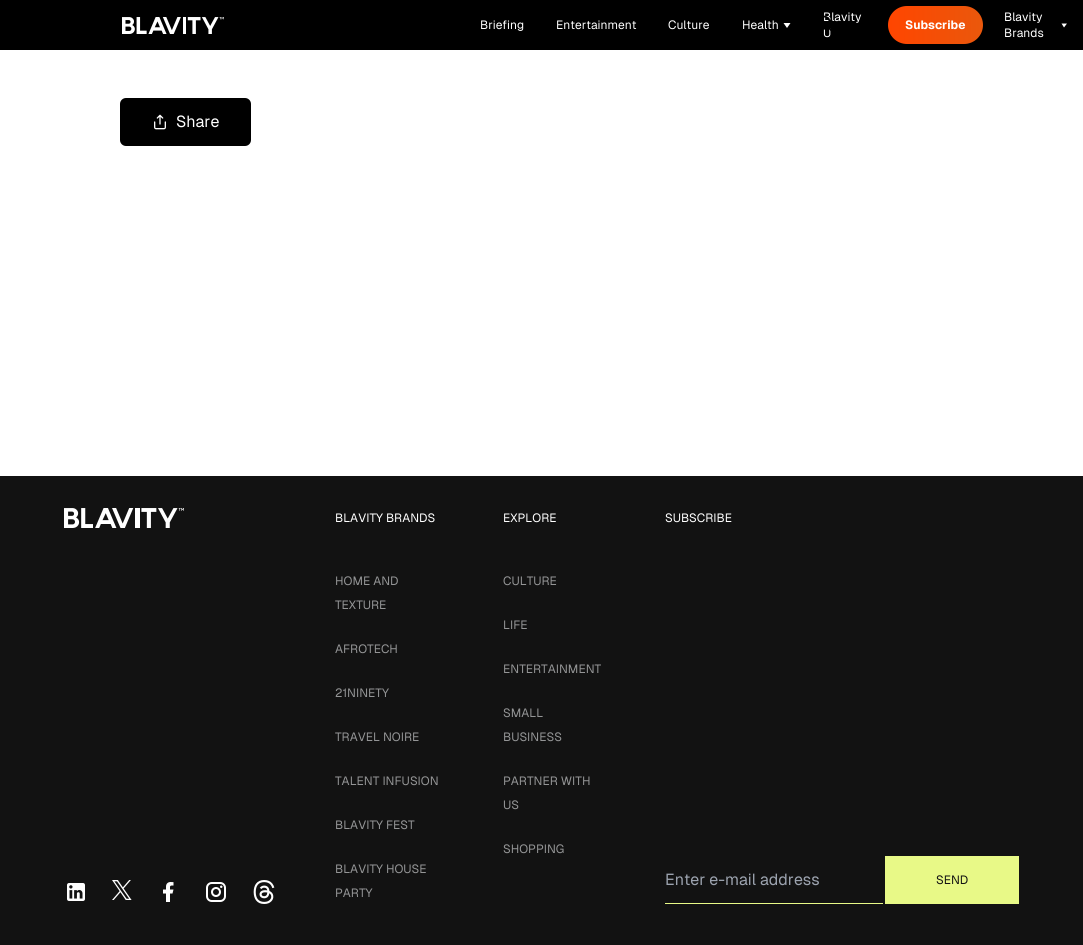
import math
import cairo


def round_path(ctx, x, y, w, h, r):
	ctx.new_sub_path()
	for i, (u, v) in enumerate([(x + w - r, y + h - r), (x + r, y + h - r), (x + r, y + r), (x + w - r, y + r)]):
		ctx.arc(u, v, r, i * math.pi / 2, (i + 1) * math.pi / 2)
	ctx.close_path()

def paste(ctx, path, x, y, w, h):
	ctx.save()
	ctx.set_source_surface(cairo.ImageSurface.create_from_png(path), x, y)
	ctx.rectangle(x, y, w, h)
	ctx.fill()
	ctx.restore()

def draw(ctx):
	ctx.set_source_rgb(1, 1, 1)
	ctx.paint()
	ctx.set_source_rgb(0, 0, 0)
	ctx.rectangle(0, 0, 1083, 50)
	ctx.fill()
	ctx.select_font_face('Geist')
	ctx.set_font_size(12)
	ctx.set_source_rgb(1, 1, 1)
	for x, y, s in [
		(480, 29, 'Briefing'),
		(556, 29, 'Entertainment'),
		(668, 29, 'Culture'),
		(742, 29, 'Health'),
	]:
		ctx.move_to(x, y)
		ctx.show_text(s)
	ctx.new_path()
	ctx.move_to(787, 28)
	ctx.line_to(783.5, 23)
	ctx.line_to(790.5, 23)
	ctx.close_path()
	ctx.fill()
	for x, y, s in [
		(823, 21, 'Blavity'),
		(823, 37, 'U'),
		(1004, 21, 'Blavity'),
		(1004, 37, 'Brands'),
	]:
		ctx.move_to(x, y)
		ctx.show_text(s)
	ctx.new_path()
	ctx.move_to(1064, 27.5)
	ctx.line_to(1061.5, 23.5)
	ctx.line_to(1067, 23.5)
	ctx.close_path()
	ctx.fill()
	paste(ctx, 'media/1.png', 122, 17, 102, 17)
	paste(ctx, 'media/2.png', 823, 15, 8, 16)
	gradient = cairo.LinearGradient(888, 25, 983, 25)
	gradient.add_color_stop_rgba(0, 1, 0.271, 0, 1)
	gradient.add_color_stop_rgba(1, 0.918, 0.345, 0.047, 1)
	ctx.set_source(gradient)
	round_path(ctx, 888, 6, 95, 38, 19)
	ctx.fill()
	ctx.select_font_face('Geist', cairo.FONT_SLANT_NORMAL, cairo.FONT_WEIGHT_BOLD)
	ctx.set_source_rgb(1, 1, 1)
	ctx.move_to(905, 29)
	ctx.show_text('Subscribe')
	ctx.set_source_rgb(0, 0, 0)
	round_path(ctx, 120, 98, 131, 48, 6)
	ctx.fill()
	paste(ctx, 'media/3.png', 154, 114, 12, 16)
	ctx.select_font_face('Geist')
	ctx.set_font_size(16)
	ctx.set_source_rgb(1, 1, 1)
	ctx.move_to(176, 127)
	ctx.show_text('Share')
	ctx.set_source_rgb(0.071, 0.071, 0.071)
	ctx.rectangle(0, 476, 1083, 469)
	ctx.fill()
	paste(ctx, 'media/4.png', 64, 508, 120, 20)
	ctx.set_font_size(12)
	ctx.set_source_rgb(1, 1, 1)
	ctx.move_to(335, 522)
	ctx.show_text('BLAVITY BRANDS')
	ctx.set_source_rgb(0.58, 0.584, 0.588)
	for x, y, s in [
		(335, 585, 'HOME AND'),
		(335, 609, 'TEXTURE'),
		(335, 653, 'AFROTECH'),
		(335, 697, '21NINETY'),
		(335, 741, 'TRAVEL NOIRE'),
		(335, 785, 'TALENT INFUSION'),
		(335, 829, 'BLAVITY FEST'),
		(335, 873, 'BLAVITY HOUSE'),
		(335, 897, 'PARTY'),
	]:
		ctx.move_to(x, y)
		ctx.show_text(s)
	ctx.set_source_rgb(1, 1, 1)
	ctx.move_to(503, 522)
	ctx.show_text('EXPLORE')
	ctx.set_source_rgb(0.58, 0.584, 0.588)
	for x, y, s in [
		(503, 585, 'CULTURE'),
		(503, 629, 'LIFE'),
		(503, 673, 'ENTERTAINMENT'),
		(503, 717, 'SMALL'),
		(503, 741, 'BUSINESS'),
		(503, 785, 'PARTNER WITH'),
		(503, 809, 'US'),
		(503, 853, 'SHOPPING'),
	]:
		ctx.move_to(x, y)
		ctx.show_text(s)
	ctx.set_source_rgb(1, 1, 1)
	ctx.move_to(665, 522)
	ctx.show_text('SUBSCRIBE')
	ctx.set_source_rgb(0.91, 0.973, 0.529)
	ctx.rectangle(665, 903, 218, 1)
	ctx.fill()
	ctx.set_font_size(16)
	ctx.set_source_rgb(0.612, 0.639, 0.686)
	ctx.move_to(665, 885)
	ctx.show_text('Enter e-mail address')
	ctx.set_source_rgb(0.91, 0.973, 0.529)
	ctx.rectangle(885, 856, 134, 48)
	ctx.fill()
	ctx.set_font_size(12)
	ctx.set_source_rgb(0.071, 0.071, 0.071)
	ctx.move_to(936, 884)
	ctx.show_text('SEND')
	paste(ctx, 'media/5.png', 67, 883, 18, 18)
	paste(ctx, 'media/6.png', 112, 880, 20, 20)
	paste(ctx, 'media/7.png', 163, 882, 11, 20)
	paste(ctx, 'media/8.png', 206, 882, 20, 20)
	paste(ctx, 'media/9.png', 253, 880, 22, 24)


surface = cairo.ImageSurface(cairo.FORMAT_RGB24, 1083, 945)
ctx = cairo.Context(surface)
options = cairo.FontOptions()
options.set_hint_metrics(cairo.HINT_METRICS_OFF)
options.set_hint_style(cairo.HINT_STYLE_NONE)
ctx.set_font_options(options)
ctx.set_miter_limit(4)
draw(ctx)
surface.write_to_png('image.png')
